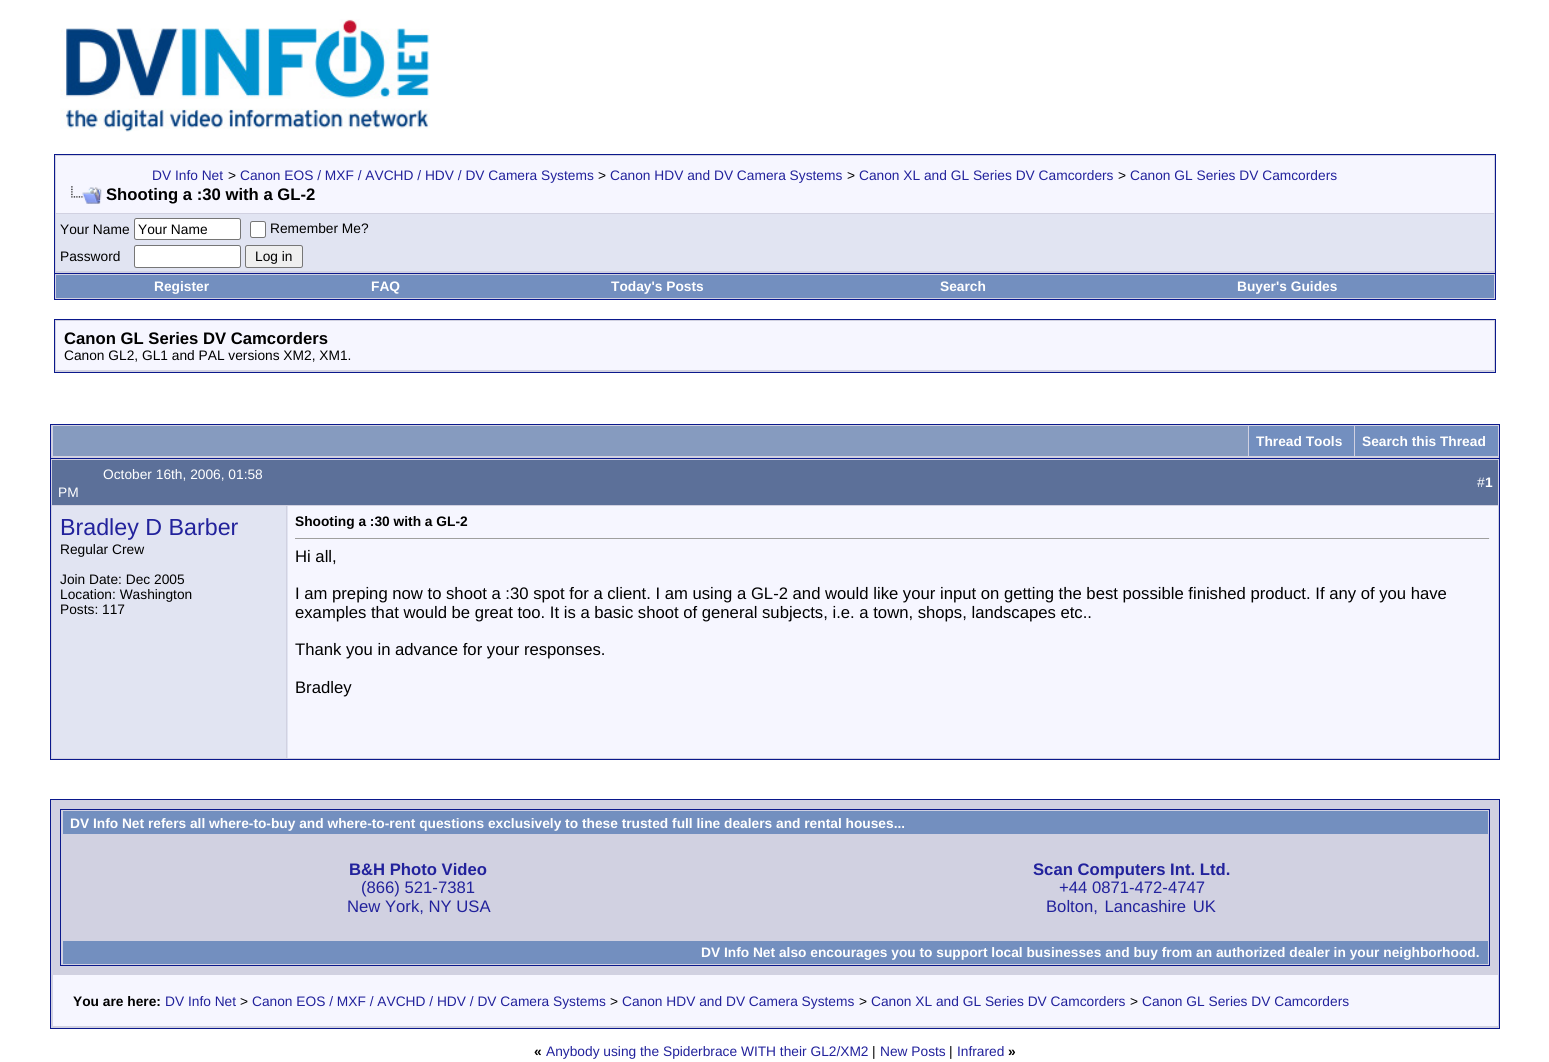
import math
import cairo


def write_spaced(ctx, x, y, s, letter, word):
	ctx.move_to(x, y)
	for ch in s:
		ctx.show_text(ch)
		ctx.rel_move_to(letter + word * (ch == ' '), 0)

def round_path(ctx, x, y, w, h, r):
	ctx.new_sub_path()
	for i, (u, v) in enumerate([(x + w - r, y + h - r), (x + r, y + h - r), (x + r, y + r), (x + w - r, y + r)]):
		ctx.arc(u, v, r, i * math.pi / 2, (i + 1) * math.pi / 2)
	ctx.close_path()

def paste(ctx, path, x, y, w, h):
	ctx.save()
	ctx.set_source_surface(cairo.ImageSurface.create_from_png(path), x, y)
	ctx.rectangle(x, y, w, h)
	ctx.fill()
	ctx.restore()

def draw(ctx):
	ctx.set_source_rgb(1, 1, 1)
	ctx.paint()
	paste(ctx, 'media/1.png', 60, 19, 370, 113)
	ctx.set_source_rgb(0.82, 0.82, 0.882)
	ctx.rectangle(54.5, 154.5, 1441, 119)
	ctx.fill_preserve()
	ctx.set_source_rgb(0.043, 0.098, 0.549)
	ctx.set_line_width(1)
	ctx.stroke()
	ctx.set_source_rgb(0.961, 0.961, 1)
	ctx.rectangle(56, 156, 1438, 57)
	ctx.fill()
	ctx.select_font_face('Liberation Sans')
	ctx.set_font_size(13.75)
	ctx.set_source_rgb(0.133, 0.133, 0.612)
	ctx.move_to(152, 180)
	ctx.show_text('DV Info Net')
	ctx.set_source_rgb(0, 0, 0)
	ctx.move_to(228, 180)
	ctx.show_text('>')
	ctx.set_source_rgb(0.133, 0.133, 0.612)
	ctx.move_to(240, 180)
	ctx.show_text('Canon EOS / MXF / AVCHD / HDV / DV Camera Systems')
	ctx.set_source_rgb(0, 0, 0)
	ctx.move_to(598, 180)
	ctx.show_text('>')
	ctx.set_source_rgb(0.133, 0.133, 0.612)
	ctx.move_to(610, 180)
	ctx.show_text('Canon HDV and DV Camera Systems')
	ctx.set_source_rgb(0, 0, 0)
	ctx.move_to(847, 180)
	ctx.show_text('>')
	ctx.set_source_rgb(0.133, 0.133, 0.612)
	ctx.move_to(859, 180)
	ctx.show_text('Canon XL and GL Series DV Camcorders')
	ctx.set_source_rgb(0, 0, 0)
	ctx.move_to(1118, 180)
	ctx.show_text('>')
	ctx.set_source_rgb(0.133, 0.133, 0.612)
	ctx.move_to(1130, 180)
	ctx.show_text('Canon GL Series DV Camcorders')
	paste(ctx, 'media/2.png', 71, 186, 31, 18)
	ctx.select_font_face('Liberation Sans', cairo.FONT_SLANT_NORMAL, cairo.FONT_WEIGHT_BOLD)
	ctx.set_font_size(16.67)
	ctx.set_source_rgb(0, 0, 0)
	ctx.move_to(106, 200)
	ctx.show_text('Shooting a :30 with a GL-2')
	ctx.set_source_rgb(0.882, 0.894, 0.949)
	ctx.rectangle(56, 214, 1438, 57)
	ctx.fill()
	ctx.select_font_face('Liberation Sans')
	ctx.set_font_size(13.75)
	ctx.set_source_rgb(0, 0, 0)
	ctx.move_to(60, 234)
	ctx.show_text('Your Name')
	ctx.set_source_rgb(1, 1, 1)
	round_path(ctx, 134.5, 218.5, 106, 21, 2)
	ctx.fill_preserve()
	ctx.set_source_rgb(0.463, 0.463, 0.463)
	ctx.stroke()
	ctx.set_source_rgb(0, 0, 0)
	ctx.move_to(138, 234)
	ctx.show_text('Your Name')
	ctx.set_source_rgb(1, 1, 1)
	round_path(ctx, 250.5, 221.5, 15, 16, 2)
	ctx.fill_preserve()
	ctx.set_source_rgb(0.463, 0.463, 0.463)
	ctx.stroke()
	ctx.set_source_rgb(0, 0, 0)
	ctx.move_to(270, 233)
	ctx.show_text('Remember Me?')
	ctx.move_to(60, 261)
	ctx.show_text('Password')
	ctx.set_source_rgb(1, 1, 1)
	round_path(ctx, 134.5, 245.5, 106, 22, 2)
	ctx.fill_preserve()
	ctx.set_source_rgb(0.463, 0.463, 0.463)
	ctx.stroke()
	ctx.set_source_rgb(0.937, 0.937, 0.937)
	round_path(ctx, 245.5, 245.5, 57, 22, 2)
	ctx.fill_preserve()
	ctx.set_source_rgb(0.463, 0.463, 0.463)
	ctx.stroke()
	ctx.set_source_rgb(0, 0, 0)
	ctx.move_to(255, 261)
	ctx.show_text('Log in')
	ctx.set_source_rgb(0.82, 0.82, 0.882)
	ctx.rectangle(55, 274, 1440, 25)
	ctx.fill()
	ctx.set_source_rgb(0.043, 0.098, 0.549)
	ctx.rectangle(1495, 274, 1, 26)
	ctx.rectangle(54, 299, 1442, 1)
	ctx.rectangle(54, 274, 1, 26)
	ctx.fill()
	ctx.set_source_rgb(0.451, 0.561, 0.749)
	ctx.rectangle(56, 275, 1438, 23)
	ctx.fill()
	ctx.select_font_face('Liberation Sans', cairo.FONT_SLANT_NORMAL, cairo.FONT_WEIGHT_BOLD)
	ctx.set_source_rgb(1, 1, 1)
	for x, y, s in [
		(154, 291, 'Register'),
		(371, 291, 'FAQ'),
		(611, 291, 'Today\'s Posts'),
		(940, 291, 'Search'),
		(1237, 291, 'Buyer\'s Guides'),
	]:
		ctx.move_to(x, y)
		ctx.show_text(s)
	ctx.set_source_rgb(0.82, 0.82, 0.882)
	ctx.rectangle(54.5, 319.5, 1441, 53)
	ctx.fill_preserve()
	ctx.set_source_rgb(0.043, 0.098, 0.549)
	ctx.stroke()
	ctx.set_source_rgb(0.961, 0.961, 1)
	ctx.rectangle(56, 321, 1438, 49)
	ctx.fill()
	ctx.set_font_size(16.67)
	ctx.set_source_rgb(0, 0, 0)
	ctx.move_to(64, 344)
	ctx.show_text('Canon GL Series DV Camcorders')
	ctx.select_font_face('Liberation Sans')
	ctx.set_font_size(13.75)
	ctx.move_to(64, 360)
	ctx.show_text('Canon GL2, GL1 and PAL versions XM2, XM1.')
	ctx.set_source_rgb(0.82, 0.82, 0.882)
	ctx.rectangle(51, 425, 1448, 33)
	ctx.fill()
	ctx.set_source_rgb(0.043, 0.098, 0.549)
	ctx.rectangle(50, 424, 1450, 1)
	ctx.rectangle(1499, 424, 1, 34)
	ctx.rectangle(50, 424, 1, 34)
	ctx.fill()
	ctx.set_source_rgb(0.525, 0.608, 0.749)
	ctx.rectangle(53, 426, 1195, 30)
	ctx.fill()
	ctx.set_source_rgb(0.451, 0.561, 0.749)
	ctx.rectangle(1249, 426, 105, 30)
	ctx.fill()
	ctx.select_font_face('Liberation Sans', cairo.FONT_SLANT_NORMAL, cairo.FONT_WEIGHT_BOLD)
	ctx.set_source_rgb(1, 1, 1)
	ctx.move_to(1256, 446)
	ctx.show_text('Thread Tools')
	ctx.set_source_rgb(0.451, 0.561, 0.749)
	ctx.rectangle(1355, 426, 143, 30)
	ctx.fill()
	ctx.set_source_rgb(1, 1, 1)
	ctx.move_to(1362, 446)
	ctx.show_text('Search this Thread')
	ctx.rectangle(50.5, 458.5, 1449, 301)
	ctx.set_source_rgb(0.043, 0.098, 0.549)
	ctx.stroke()
	ctx.set_source_rgb(0.361, 0.439, 0.6)
	ctx.rectangle(52, 460, 1446, 45)
	ctx.fill()
	ctx.set_source_rgb(0.82, 0.82, 0.882)
	ctx.rectangle(51, 459, 1448, 1)
	ctx.rectangle(51, 505, 237, 1)
	ctx.rectangle(51, 459, 1, 245)
	ctx.fill()
	ctx.select_font_face('Liberation Sans')
	ctx.set_source_rgb(1, 1, 1)
	ctx.move_to(103, 479)
	ctx.show_text('October 16th, 2006, 01:58')
	ctx.move_to(58, 497)
	ctx.show_text('PM')
	ctx.set_source_rgb(0.82, 0.82, 0.882)
	ctx.rectangle(1498, 459, 1, 300)
	ctx.fill()
	ctx.rectangle(288, 505, 1211, 1)
	ctx.fill()
	ctx.set_source_rgb(1, 1, 1)
	ctx.move_to(1477, 487)
	ctx.show_text('#')
	ctx.select_font_face('Liberation Sans', cairo.FONT_SLANT_NORMAL, cairo.FONT_WEIGHT_BOLD)
	ctx.move_to(1485, 487)
	ctx.show_text('1')
	ctx.set_source_rgb(0.882, 0.894, 0.949)
	ctx.rectangle(52, 506, 236, 252)
	ctx.fill()
	ctx.set_source_rgb(0.82, 0.82, 0.882)
	ctx.rectangle(286, 506, 1, 253)
	ctx.fill()
	ctx.select_font_face('Liberation Sans')
	ctx.set_font_size(23.25)
	ctx.set_source_rgb(0.133, 0.133, 0.612)
	ctx.move_to(60, 535)
	ctx.show_text('Bradley D Barber')
	ctx.set_font_size(13.75)
	ctx.set_source_rgb(0, 0, 0)
	for x, y, s in [
		(60, 554, 'Regular Crew'),
		(60, 584, 'Join Date: Dec 2005'),
		(60, 599, 'Location: Washington'),
		(60, 614, 'Posts: 117'),
	]:
		ctx.move_to(x, y)
		ctx.show_text(s)
	ctx.set_source_rgb(0.961, 0.961, 1)
	ctx.rectangle(288, 506, 1210, 252)
	ctx.fill()
	ctx.select_font_face('Liberation Sans', cairo.FONT_SLANT_NORMAL, cairo.FONT_WEIGHT_BOLD)
	ctx.set_source_rgb(0, 0, 0)
	ctx.move_to(295, 526)
	ctx.show_text('Shooting a :30 with a GL-2')
	ctx.set_source_rgb(0.624, 0.624, 0.624)
	ctx.rectangle(295, 538, 1195, 1)
	ctx.fill()
	ctx.set_source_rgb(0.933, 0.933, 0.933)
	ctx.rectangle(1489, 538, 1, 1)
	ctx.fill()
	ctx.select_font_face('Liberation Sans')
	ctx.set_font_size(16.67)
	ctx.set_source_rgb(0, 0, 0)
	for x, y, s in [
		(295, 562, 'Hi all,'),
		(295, 599, 'I am preping now to shoot a :30 spot for a client. I am using a GL-2 and would like your input on getting the best possible finished product. If any of you have'),
		(295, 618, 'examples that would be great too. It is a basic shoot of general subjects, i.e. a town, shops, landscapes etc..'),
		(295, 655, 'Thank you in advance for your responses.'),
		(295, 693, 'Bradley'),
	]:
		ctx.move_to(x, y)
		ctx.show_text(s)
	ctx.set_source_rgb(0.82, 0.82, 0.882)
	ctx.rectangle(51, 758, 1448, 1)
	ctx.fill()
	ctx.rectangle(51, 704, 1, 55)
	ctx.fill()
	ctx.rectangle(50.5, 799.5, 1449, 229)
	ctx.fill_preserve()
	ctx.set_source_rgb(0.043, 0.098, 0.549)
	ctx.stroke()
	ctx.rectangle(60.5, 809.5, 1429, 156)
	ctx.stroke()
	ctx.set_source_rgb(0.451, 0.561, 0.749)
	ctx.rectangle(63, 811, 1425, 23)
	ctx.fill()
	ctx.select_font_face('Liberation Sans', cairo.FONT_SLANT_NORMAL, cairo.FONT_WEIGHT_BOLD)
	ctx.set_font_size(13.75)
	ctx.set_source_rgb(1, 1, 1)
	ctx.move_to(70, 828)
	ctx.show_text('DV Info Net refers all where-to-buy and where-to-rent questions exclusively to these trusted full line dealers and rental houses...')
	ctx.set_font_size(16.67)
	ctx.set_source_rgb(0.133, 0.133, 0.612)
	ctx.move_to(349, 875)
	ctx.show_text('B&H Photo Video')
	ctx.select_font_face('Liberation Sans')
	ctx.move_to(361, 893)
	ctx.show_text('(866) 521-7381')
	ctx.move_to(347, 912)
	ctx.show_text('New York, NY USA')
	ctx.select_font_face('Liberation Sans', cairo.FONT_SLANT_NORMAL, cairo.FONT_WEIGHT_BOLD)
	ctx.move_to(1033, 875)
	ctx.show_text('Scan Computers Int. Ltd.')
	ctx.select_font_face('Liberation Sans')
	ctx.move_to(1059, 893)
	ctx.show_text('+44 0871-472-4747')
	write_spaced(ctx, 1046, 912, 'Bolton, Lancashire UK', 0, 2)
	ctx.set_source_rgb(0.451, 0.561, 0.749)
	ctx.rectangle(63, 941, 1425, 23)
	ctx.fill()
	ctx.select_font_face('Liberation Sans', cairo.FONT_SLANT_NORMAL, cairo.FONT_WEIGHT_BOLD)
	ctx.set_font_size(13.75)
	ctx.set_source_rgb(1, 1, 1)
	ctx.move_to(701, 957)
	ctx.show_text('DV Info Net also encourages you to support local businesses and buy from an authorized dealer in your neighborhood.')
	ctx.set_source_rgb(0.961, 0.961, 1)
	ctx.rectangle(53, 975, 1445, 51)
	ctx.fill()
	ctx.set_source_rgb(0, 0, 0)
	ctx.move_to(73, 1006)
	ctx.show_text('You are here:')
	ctx.select_font_face('Liberation Sans')
	ctx.set_source_rgb(0.133, 0.133, 0.612)
	ctx.move_to(165, 1006)
	ctx.show_text('DV Info Net')
	ctx.set_source_rgb(0, 0, 0)
	ctx.move_to(240, 1006)
	ctx.show_text('>')
	ctx.set_source_rgb(0.133, 0.133, 0.612)
	ctx.move_to(252, 1006)
	ctx.show_text('Canon EOS / MXF / AVCHD / HDV / DV Camera Systems')
	ctx.set_source_rgb(0, 0, 0)
	ctx.move_to(610, 1006)
	ctx.show_text('>')
	ctx.set_source_rgb(0.133, 0.133, 0.612)
	ctx.move_to(622, 1006)
	ctx.show_text('Canon HDV and DV Camera Systems')
	ctx.set_source_rgb(0, 0, 0)
	ctx.move_to(859, 1006)
	ctx.show_text('>')
	ctx.set_source_rgb(0.133, 0.133, 0.612)
	ctx.move_to(871, 1006)
	ctx.show_text('Canon XL and GL Series DV Camcorders')
	ctx.set_source_rgb(0, 0, 0)
	ctx.move_to(1130, 1006)
	ctx.show_text('>')
	ctx.set_source_rgb(0.133, 0.133, 0.612)
	ctx.move_to(1142, 1006)
	ctx.show_text('Canon GL Series DV Camcorders')
	ctx.select_font_face('Liberation Sans', cairo.FONT_SLANT_NORMAL, cairo.FONT_WEIGHT_BOLD)
	ctx.set_source_rgb(0, 0, 0)
	ctx.move_to(534, 1056)
	ctx.show_text('«')
	ctx.select_font_face('Liberation Sans')
	ctx.set_source_rgb(0.133, 0.133, 0.612)
	ctx.move_to(546, 1056)
	ctx.show_text('Anybody using the Spiderbrace WITH their GL2/XM2')
	ctx.set_source_rgb(0, 0, 0)
	ctx.move_to(872, 1056)
	ctx.show_text('|')
	ctx.set_source_rgb(0.133, 0.133, 0.612)
	ctx.move_to(880, 1056)
	ctx.show_text('New Posts')
	ctx.set_source_rgb(0, 0, 0)
	ctx.move_to(949, 1056)
	ctx.show_text('|')
	ctx.set_source_rgb(0.133, 0.133, 0.612)
	ctx.move_to(957, 1056)
	ctx.show_text('Infrared')
	ctx.select_font_face('Liberation Sans', cairo.FONT_SLANT_NORMAL, cairo.FONT_WEIGHT_BOLD)
	ctx.set_source_rgb(0, 0, 0)
	ctx.move_to(1008, 1056)
	ctx.show_text('»')


surface = cairo.ImageSurface(cairo.FORMAT_RGB24, 1549, 1062)
ctx = cairo.Context(surface)
options = cairo.FontOptions()
options.set_hint_metrics(cairo.HINT_METRICS_OFF)
options.set_hint_style(cairo.HINT_STYLE_NONE)
ctx.set_font_options(options)
ctx.set_miter_limit(4)
draw(ctx)
surface.write_to_png('image.png')
